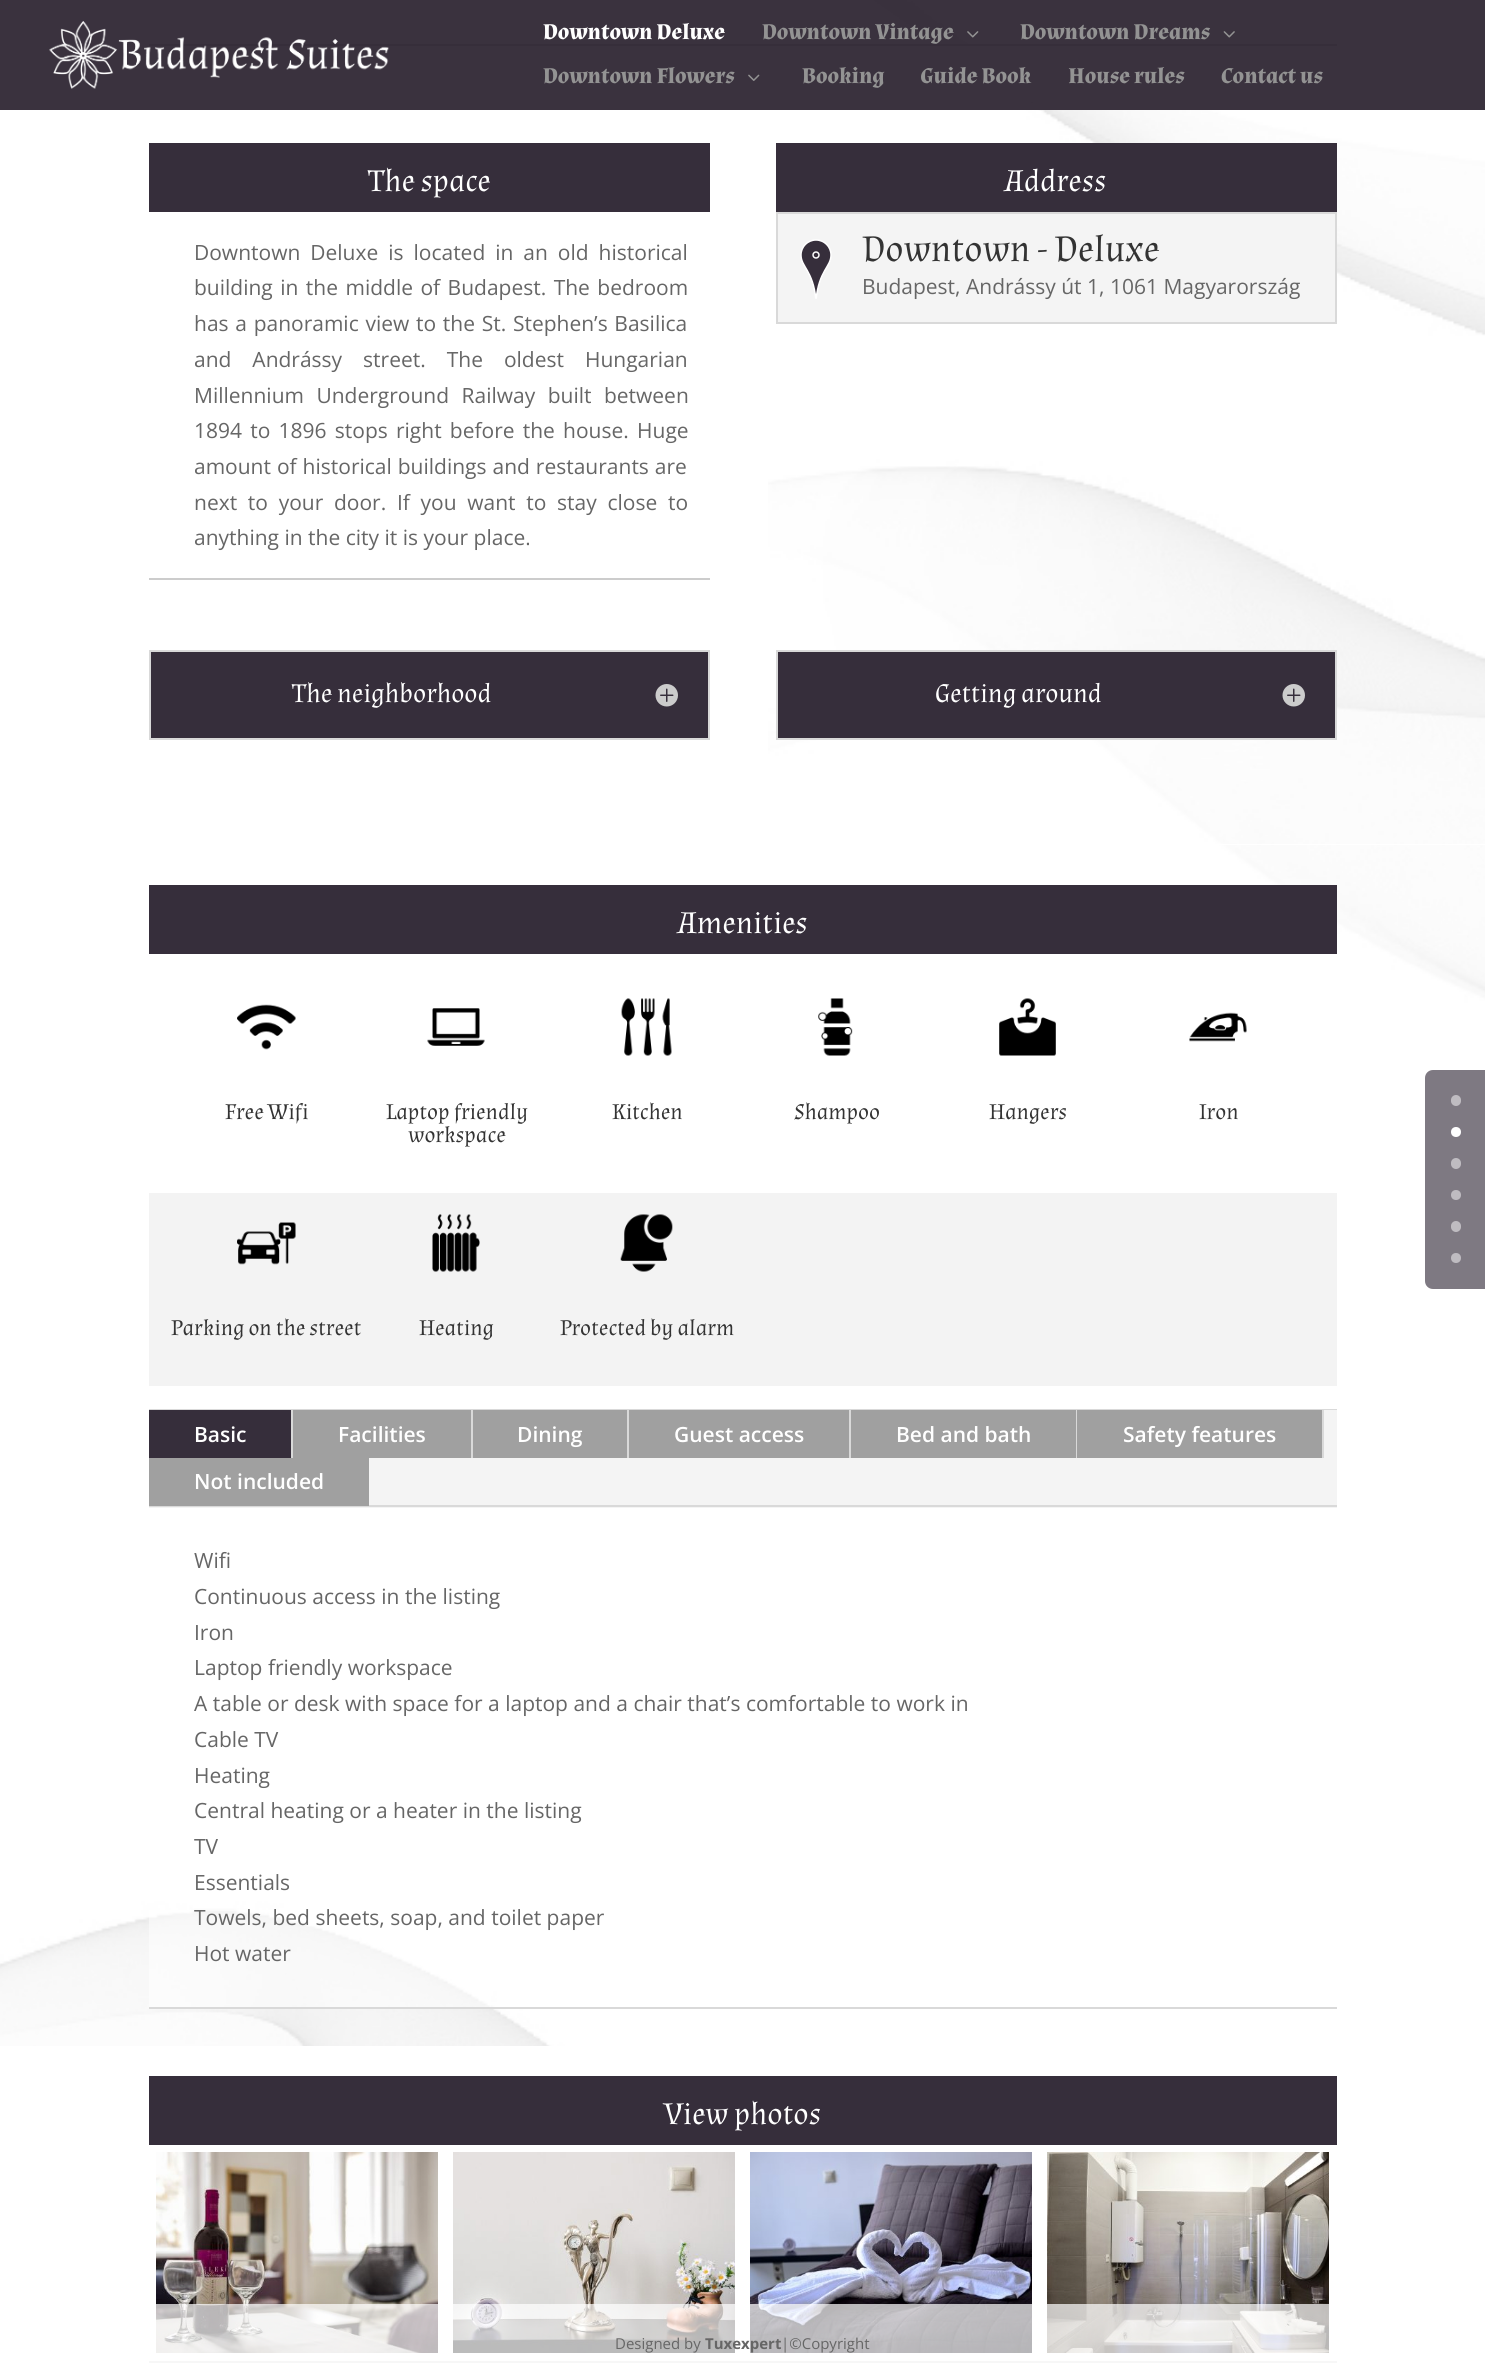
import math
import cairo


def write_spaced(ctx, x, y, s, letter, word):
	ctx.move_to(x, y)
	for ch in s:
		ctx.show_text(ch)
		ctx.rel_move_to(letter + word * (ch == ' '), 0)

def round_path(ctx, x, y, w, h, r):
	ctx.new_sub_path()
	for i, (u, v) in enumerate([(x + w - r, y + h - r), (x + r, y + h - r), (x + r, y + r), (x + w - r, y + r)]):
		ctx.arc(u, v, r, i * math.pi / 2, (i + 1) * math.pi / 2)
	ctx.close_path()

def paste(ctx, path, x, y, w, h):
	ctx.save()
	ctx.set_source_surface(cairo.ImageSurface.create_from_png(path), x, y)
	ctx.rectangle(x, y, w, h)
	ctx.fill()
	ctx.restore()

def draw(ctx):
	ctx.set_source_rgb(1, 1, 1)
	ctx.paint()
	paste(ctx, 'media/1.png', 0, 845, 1485, 1201)
	paste(ctx, 'media/6.png', 768, 0, 717, 844)
	ctx.set_source_rgba(0, 0, 0, 0.05)
	ctx.rectangle(149, 0, 1188, 44)
	ctx.fill()
	ctx.set_source_rgb(0.212, 0.18, 0.231)
	ctx.rectangle(149, 44, 1188, 2)
	ctx.fill()
	ctx.set_source_rgba(0.212, 0.18, 0.231, 0.98)
	ctx.rectangle(0, 0, 1485, 110)
	ctx.fill()
	paste(ctx, 'media/2.png', 49, 21, 340, 68)
	ctx.select_font_face('Almendra', cairo.FONT_SLANT_NORMAL, cairo.FONT_WEIGHT_BOLD)
	ctx.set_font_size(22.5)
	ctx.set_source_rgb(1, 1, 1)
	ctx.move_to(543, 39)
	ctx.show_text('Downtown Deluxe')
	ctx.set_source_rgb(0.576, 0.576, 0.576)
	ctx.move_to(762, 39)
	ctx.show_text('Downtown Vintage')
	paste(ctx, 'media/3.png', 967, 31, 12, 7)
	ctx.move_to(1020, 39)
	ctx.show_text('Downtown Dreams')
	paste(ctx, 'media/4.png', 1223, 31, 12, 7)
	ctx.move_to(543, 83)
	ctx.show_text('Downtown Flowers')
	paste(ctx, 'media/5.png', 748, 74, 12, 7)
	for x, y, s in [
		(802, 83, 'Booking'),
		(921, 83, 'Guide Book'),
		(1068, 83, 'House rules'),
		(1221, 83, 'Contact us'),
	]:
		ctx.move_to(x, y)
		ctx.show_text(s)
	ctx.set_source_rgb(0.212, 0.18, 0.231)
	ctx.rectangle(149, 143, 561, 69)
	ctx.fill()
	ctx.select_font_face('Almendra')
	ctx.set_font_size(31.5)
	ctx.set_source_rgb(1, 1, 1)
	ctx.move_to(368, 191)
	ctx.show_text('The space')
	ctx.set_source_rgb(0.8, 0.8, 0.8)
	ctx.rectangle(149, 578, 561, 2)
	ctx.fill()
	ctx.select_font_face('Open Sans')
	ctx.set_font_size(21)
	ctx.set_source_rgb(0.4, 0.4, 0.4)
	write_spaced(ctx, 194, 260, 'Downtown Deluxe is located in an old historical', 0, 4.5)
	write_spaced(ctx, 194, 295, 'building in the middle of Budapest. The bedroom', 0, 2)
	write_spaced(ctx, 194, 331, 'has a panoramic view to the St. Stephen’s Basilica', 0, 1.25)
	write_spaced(ctx, 194, 367, 'and Andrássy street. The oldest Hungarian', 0, 15.5)
	write_spaced(ctx, 194, 403, 'Millennium Underground Railway built between', 0, 7)
	write_spaced(ctx, 194, 438, '1894 to 1896 stops right before the house. Huge', 0, 2.75)
	write_spaced(ctx, 194, 474, 'amount of historical buildings and restaurants are', 0, 0.5)
	write_spaced(ctx, 194, 510, 'next to your door. If you want to stay close to', 0, 5.25)
	ctx.move_to(194, 545)
	ctx.show_text('anything in the city it is your place.')
	ctx.set_source_rgb(0.212, 0.18, 0.231)
	ctx.rectangle(776, 143, 561, 69)
	ctx.fill()
	ctx.select_font_face('Almendra')
	ctx.set_font_size(31.5)
	ctx.set_source_rgb(1, 1, 1)
	ctx.move_to(1005, 191)
	ctx.show_text('Address')
	ctx.set_source_rgb(0.957, 0.957, 0.957)
	ctx.rectangle(777, 213, 559, 110)
	ctx.fill_preserve()
	ctx.set_source_rgb(0.851, 0.851, 0.851)
	ctx.stroke()
	paste(ctx, 'media/7.png', 800, 239, 32, 60)
	ctx.set_font_size(37.5)
	ctx.set_source_rgb(0.2, 0.2, 0.2)
	ctx.move_to(862, 261)
	ctx.show_text('Downtown - Deluxe')
	ctx.select_font_face('Open Sans')
	ctx.set_font_size(21)
	ctx.set_source_rgb(0.4, 0.4, 0.4)
	ctx.move_to(862, 294)
	ctx.show_text('Budapest, Andrássy út 1, 1061 Magyarország')
	ctx.set_source_rgb(0.212, 0.18, 0.231)
	ctx.rectangle(150, 651, 559, 88)
	ctx.fill_preserve()
	ctx.set_source_rgb(0.851, 0.851, 0.851)
	ctx.stroke()
	ctx.select_font_face('Almendra')
	ctx.set_font_size(27)
	ctx.set_source_rgb(1, 1, 1)
	ctx.move_to(292, 702)
	ctx.show_text('The neighborhood')
	paste(ctx, 'media/8.png', 655, 684, 23, 23)
	ctx.set_source_rgb(0.212, 0.18, 0.231)
	ctx.rectangle(777, 651, 559, 88)
	ctx.fill_preserve()
	ctx.set_source_rgb(0.851, 0.851, 0.851)
	ctx.stroke()
	ctx.set_source_rgb(1, 1, 1)
	ctx.move_to(935, 702)
	ctx.show_text('Getting around')
	paste(ctx, 'media/8.png', 1282, 684, 23, 23)
	ctx.set_source_rgb(0.212, 0.18, 0.231)
	ctx.rectangle(149, 885, 1188, 69)
	ctx.fill()
	ctx.set_font_size(31.5)
	ctx.set_source_rgb(1, 1, 1)
	ctx.move_to(678, 933)
	ctx.show_text('Amenities')
	paste(ctx, 'media/9.png', 237, 1004, 59, 46)
	ctx.set_font_size(22.5)
	ctx.set_source_rgb(0.2, 0.2, 0.2)
	ctx.move_to(225, 1119)
	ctx.show_text('Free Wifi')
	paste(ctx, 'media/10.png', 427, 1008, 58, 38)
	ctx.move_to(386, 1119)
	ctx.show_text('Laptop friendly')
	ctx.move_to(408, 1142)
	ctx.show_text('workspace')
	paste(ctx, 'media/11.png', 621, 998, 51, 58)
	ctx.move_to(612, 1119)
	ctx.show_text('Kitchen')
	paste(ctx, 'media/12.png', 818, 998, 35, 58)
	ctx.move_to(794, 1119)
	ctx.show_text('Shampoo')
	paste(ctx, 'media/13.png', 999, 998, 57, 58)
	ctx.move_to(989, 1119)
	ctx.show_text('Hangers')
	paste(ctx, 'media/14.png', 1189, 1012, 58, 30)
	ctx.move_to(1199, 1119)
	ctx.show_text('Iron')
	ctx.set_source_rgb(0.953, 0.953, 0.953)
	ctx.rectangle(149, 1193, 1188, 193)
	ctx.fill()
	paste(ctx, 'media/15.png', 237, 1222, 59, 43)
	ctx.set_source_rgb(0.2, 0.2, 0.2)
	ctx.move_to(171, 1335)
	ctx.show_text('Parking on the street')
	paste(ctx, 'media/16.png', 432, 1214, 48, 58)
	ctx.move_to(419, 1335)
	ctx.show_text('Heating')
	paste(ctx, 'media/17.png', 620, 1214, 53, 58)
	ctx.move_to(560, 1335)
	ctx.show_text('Protected by alarm')
	ctx.set_source_rgb(0.851, 0.851, 0.851)
	ctx.rectangle(149, 1409, 1188, 1)
	ctx.rectangle(149, 2007, 1188, 2)
	ctx.fill()
	ctx.set_source_rgb(0.957, 0.957, 0.957)
	ctx.rectangle(149, 1410, 1188, 98)
	ctx.fill()
	ctx.set_source_rgb(0.212, 0.18, 0.231)
	ctx.rectangle(149, 1410, 142, 48)
	ctx.fill()
	ctx.set_source_rgb(0.851, 0.851, 0.851)
	ctx.rectangle(291, 1410, 2, 48)
	ctx.fill()
	ctx.select_font_face('Open Sans SemiBold')
	ctx.set_font_size(21)
	ctx.set_source_rgb(1, 1, 1)
	ctx.move_to(194, 1442)
	ctx.show_text('Basic')
	ctx.set_source_rgb(0.627, 0.627, 0.627)
	ctx.rectangle(293, 1410, 178, 48)
	ctx.fill()
	ctx.set_source_rgb(0.851, 0.851, 0.851)
	ctx.rectangle(471, 1410, 2, 48)
	ctx.fill()
	ctx.set_source_rgb(1, 1, 1)
	ctx.move_to(338, 1442)
	ctx.show_text('Facilities')
	ctx.set_source_rgb(0.627, 0.627, 0.627)
	ctx.rectangle(473, 1410, 154, 48)
	ctx.fill()
	ctx.set_source_rgb(0.851, 0.851, 0.851)
	ctx.rectangle(627, 1410, 2, 48)
	ctx.fill()
	ctx.set_source_rgb(1, 1, 1)
	ctx.move_to(517, 1442)
	ctx.show_text('Dining')
	ctx.set_source_rgb(0.627, 0.627, 0.627)
	ctx.rectangle(629, 1410, 220, 48)
	ctx.fill()
	ctx.set_source_rgb(0.851, 0.851, 0.851)
	ctx.rectangle(849, 1410, 2, 48)
	ctx.fill()
	ctx.set_source_rgb(1, 1, 1)
	ctx.move_to(674, 1442)
	ctx.show_text('Guest access')
	ctx.set_source_rgb(0.627, 0.627, 0.627)
	ctx.rectangle(851, 1410, 225, 48)
	ctx.fill()
	ctx.set_source_rgb(0.851, 0.851, 0.851)
	ctx.rectangle(1076, 1410, 1, 48)
	ctx.fill()
	ctx.set_source_rgb(1, 1, 1)
	ctx.move_to(896, 1442)
	ctx.show_text('Bed and bath')
	ctx.set_source_rgb(0.627, 0.627, 0.627)
	ctx.rectangle(1077, 1410, 245, 48)
	ctx.fill()
	ctx.set_source_rgb(0.851, 0.851, 0.851)
	ctx.rectangle(1322, 1410, 2, 48)
	ctx.fill()
	ctx.set_source_rgb(1, 1, 1)
	ctx.move_to(1123, 1442)
	ctx.show_text('Safety features')
	ctx.set_source_rgb(0.851, 0.851, 0.851)
	ctx.rectangle(149, 1505, 1188, 2)
	ctx.fill()
	ctx.set_source_rgb(0.627, 0.627, 0.627)
	ctx.rectangle(149, 1458, 220, 48)
	ctx.fill()
	ctx.set_source_rgb(1, 1, 1)
	ctx.move_to(194, 1489)
	ctx.show_text('Not included')
	ctx.set_source_rgba(1, 1, 1, 0.5)
	ctx.rectangle(149, 1910, 342, 97)
	ctx.fill()
	ctx.select_font_face('Open Sans')
	ctx.set_source_rgb(0.4, 0.4, 0.4)
	for x, y, s in [
		(194, 1568, 'Wifi'),
		(194, 1604, 'Continuous access in the listing'),
		(194, 1640, 'Iron'),
		(194, 1675, 'Laptop friendly workspace'),
		(194, 1711, 'A table or desk with space for a laptop and a chair that’s comfortable to work in'),
		(194, 1747, 'Cable TV'),
		(194, 1783, 'Heating'),
		(194, 1818, 'Central heating or a heater in the listing'),
		(194, 1854, 'TV'),
		(194, 1890, 'Essentials'),
		(194, 1925, 'Towels, bed sheets, soap, and toilet paper'),
		(194, 1961, 'Hot water'),
	]:
		ctx.move_to(x, y)
		ctx.show_text(s)
	ctx.set_source_rgb(0.212, 0.18, 0.231)
	ctx.rectangle(149, 2076, 1188, 69)
	ctx.fill()
	ctx.select_font_face('Almendra')
	ctx.set_font_size(31.5)
	ctx.set_source_rgb(1, 1, 1)
	ctx.move_to(664, 2124)
	ctx.show_text('View photos')
	paste(ctx, 'media/18.png', 156, 2152, 282, 201)
	paste(ctx, 'media/19.png', 453, 2152, 282, 201)
	paste(ctx, 'media/20.png', 750, 2152, 282, 201)
	paste(ctx, 'media/21.png', 1047, 2152, 282, 201)
	ctx.set_source_rgb(0.886, 0.886, 0.886)
	ctx.rectangle(149, 2361, 1188, 2)
	ctx.fill()
	ctx.set_source_rgb(0.494, 0.475, 0.51)
	ctx.new_path()
	ctx.move_to(1433, 1070)
	ctx.line_to(1485, 1070)
	ctx.line_to(1485, 1289)
	ctx.line_to(1433, 1289)
	ctx.curve_to(1428.5, 1289, 1425, 1285.5, 1425, 1281)
	ctx.line_to(1425, 1078)
	ctx.curve_to(1425, 1073.5, 1428.5, 1070, 1433, 1070)
	ctx.close_path()
	ctx.fill()
	ctx.set_source_rgb(0.749, 0.737, 0.757)
	round_path(ctx, 1451, 1095, 10, 11, 5)
	ctx.fill()
	ctx.set_source_rgb(1, 1, 1)
	ctx.arc(1456, 1132, 5, 0, 2 * math.pi)
	ctx.fill()
	ctx.set_source_rgb(0.749, 0.737, 0.757)
	round_path(ctx, 1451, 1158, 10, 11, 5)
	ctx.fill()
	ctx.arc(1456, 1195, 5, 0, 2 * math.pi)
	ctx.fill()
	round_path(ctx, 1451, 1221, 10, 11, 5)
	ctx.fill()
	ctx.arc(1456, 1258, 5, 0, 2 * math.pi)
	ctx.fill()
	ctx.set_source_rgba(1, 1, 1, 0.71)
	ctx.rectangle(149, 2304, 1188, 59)
	ctx.fill()
	ctx.select_font_face('Open Sans')
	ctx.set_font_size(15)
	ctx.set_source_rgb(0.4, 0.4, 0.4)
	ctx.move_to(615, 2349)
	ctx.show_text('Designed by')
	ctx.select_font_face('Open Sans', cairo.FONT_SLANT_NORMAL, cairo.FONT_WEIGHT_BOLD)
	ctx.move_to(705, 2349)
	ctx.show_text('Tuxexpert')
	ctx.select_font_face('Open Sans')
	ctx.move_to(781, 2349)
	ctx.show_text('|©Copyright')


surface = cairo.ImageSurface(cairo.FORMAT_RGB24, 1485, 2377)
ctx = cairo.Context(surface)
options = cairo.FontOptions()
options.set_hint_metrics(cairo.HINT_METRICS_OFF)
options.set_hint_style(cairo.HINT_STYLE_NONE)
ctx.set_font_options(options)
ctx.set_miter_limit(4)
draw(ctx)
surface.write_to_png('image.png')
